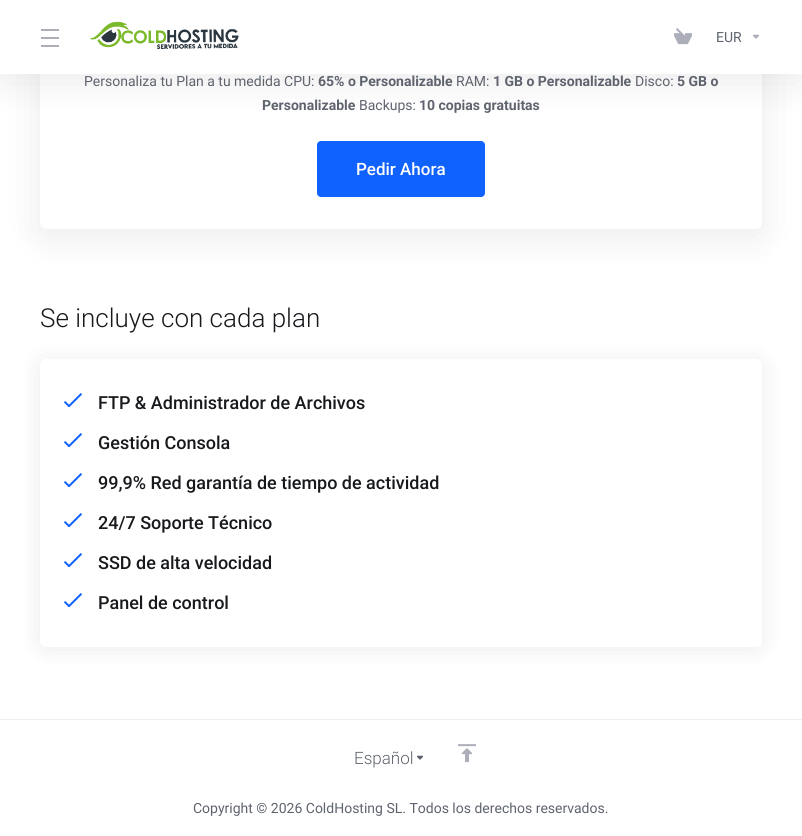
import math
import cairo


def round_path(ctx, x, y, w, h, r):
	ctx.new_sub_path()
	for i, (u, v) in enumerate([(x + w - r, y + h - r), (x + r, y + h - r), (x + r, y + r), (x + w - r, y + r)]):
		ctx.arc(u, v, r, i * math.pi / 2, (i + 1) * math.pi / 2)
	ctx.close_path()

def blur_box(ctx, x, y, w, h, r, blur, alpha):
	ctx.push_group_with_content(cairo.CONTENT_ALPHA)
	ctx.set_operator(cairo.OPERATOR_SOURCE)
	for i in range(15, -16, -2):
		e = blur * i / 6
		if min(w, h) + 2 * e > 0:
			ctx.set_source_rgba(0, 0, 0, alpha * math.erfc((i - 1) / 8.5) / 2)
			round_path(ctx, x - e, y - e, w + 2 * e, h + 2 * e, max(0, min(r + e + blur * .6, min(w, h) / 2 + e)))
			ctx.fill()
	ctx.mask(ctx.pop_group())

def paste(ctx, path, x, y, w, h):
	ctx.save()
	ctx.set_source_surface(cairo.ImageSurface.create_from_png(path), x, y)
	ctx.rectangle(x, y, w, h)
	ctx.fill()
	ctx.restore()

def draw(ctx):
	ctx.set_source_rgb(1, 1, 1)
	ctx.paint()
	ctx.set_source_rgb(0, 0, 0)
	blur_box(ctx, 40, -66, 722, 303, 6, 20, 0.08)
	ctx.set_source_rgb(1, 1, 1)
	round_path(ctx, 40, -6, 722, 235, 6)
	ctx.fill()
	ctx.set_source_rgb(0.063, 0.384, 0.996)
	round_path(ctx, 317.5, 141.5, 167, 55, 3.5)
	ctx.fill_preserve()
	ctx.set_line_width(1)
	ctx.stroke()
	ctx.set_source_rgb(0, 0, 0)
	blur_box(ctx, 0, 8, 802, 74, 0, 20, 0.08)
	ctx.set_source_rgb(1, 1, 1)
	ctx.rectangle(0, 0, 802, 74)
	ctx.fill()
	ctx.set_source_rgb(0.675, 0.686, 0.725)
	ctx.rectangle(41, 29, 18, 2)
	ctx.rectangle(41, 37, 18, 2)
	ctx.rectangle(41, 45, 18, 2)
	ctx.fill()
	paste(ctx, 'media/1.png', 90, 21, 149, 29)
	paste(ctx, 'media/2.png', 674, 28, 18, 17)
	ctx.select_font_face('Roboto')
	ctx.set_font_size(14)
	ctx.set_source_rgb(0.369, 0.388, 0.431)
	ctx.move_to(716, 42)
	ctx.show_text('EUR')
	paste(ctx, 'media/3.png', 753, 34, 6, 5)
	ctx.move_to(84, 86)
	ctx.show_text('Personaliza tu Plan a tu medida CPU:')
	ctx.select_font_face('Roboto', cairo.FONT_SLANT_NORMAL, cairo.FONT_WEIGHT_BOLD)
	ctx.move_to(318, 86)
	ctx.show_text('65% o Personalizable')
	ctx.select_font_face('Roboto')
	ctx.move_to(456, 86)
	ctx.show_text('RAM:')
	ctx.select_font_face('Roboto', cairo.FONT_SLANT_NORMAL, cairo.FONT_WEIGHT_BOLD)
	ctx.move_to(493, 86)
	ctx.show_text('1 GB o Personalizable')
	ctx.select_font_face('Roboto')
	ctx.move_to(635, 86)
	ctx.show_text('Disco:')
	ctx.select_font_face('Roboto', cairo.FONT_SLANT_NORMAL, cairo.FONT_WEIGHT_BOLD)
	ctx.move_to(677, 86)
	ctx.show_text('5 GB o')
	ctx.move_to(262, 110)
	ctx.show_text('Personalizable')
	ctx.select_font_face('Roboto')
	ctx.move_to(359, 110)
	ctx.show_text('Backups:')
	ctx.select_font_face('Roboto', cairo.FONT_SLANT_NORMAL, cairo.FONT_WEIGHT_BOLD)
	ctx.move_to(419, 110)
	ctx.show_text('10 copias gratuitas')
	ctx.select_font_face('Roboto Medium')
	ctx.set_font_size(17)
	ctx.set_source_rgb(1, 1, 1)
	ctx.move_to(356, 175)
	ctx.show_text('Pedir Ahora')
	ctx.select_font_face('Roboto Light')
	ctx.set_font_size(26)
	ctx.set_source_rgb(0.09, 0.098, 0.11)
	ctx.move_to(40, 327)
	ctx.show_text('Se incluye con cada plan')
	ctx.set_source_rgb(0, 0, 0)
	blur_box(ctx, 40, 361, 722, 288, 6, 12, 0.08)
	ctx.set_source_rgb(1, 1, 1)
	round_path(ctx, 40, 359, 722, 288, 6)
	ctx.fill()
	paste(ctx, 'media/4.png', 64, 393, 18, 15)
	ctx.select_font_face('Roboto Medium')
	ctx.set_font_size(18)
	ctx.set_source_rgb(0.09, 0.098, 0.11)
	ctx.move_to(98, 409)
	ctx.show_text('FTP & Administrador de Archivos')
	paste(ctx, 'media/4.png', 64, 433, 18, 15)
	ctx.move_to(98, 449)
	ctx.show_text('Gestión Consola')
	paste(ctx, 'media/4.png', 64, 473, 18, 15)
	ctx.move_to(98, 489)
	ctx.show_text('99,9% Red garantía de tiempo de actividad')
	paste(ctx, 'media/4.png', 64, 513, 18, 15)
	ctx.move_to(98, 529)
	ctx.show_text('24/7 Soporte Técnico')
	paste(ctx, 'media/4.png', 64, 553, 18, 15)
	ctx.move_to(98, 569)
	ctx.show_text('SSD de alta velocidad')
	paste(ctx, 'media/4.png', 64, 593, 18, 15)
	ctx.move_to(98, 609)
	ctx.show_text('Panel de control')
	ctx.set_source_rgb(0.937, 0.937, 0.945)
	ctx.rectangle(0, 719, 802, 1)
	ctx.fill()
	ctx.select_font_face('Roboto Light')
	ctx.set_font_size(17)
	ctx.set_source_rgb(0.369, 0.388, 0.431)
	ctx.move_to(354, 764)
	ctx.show_text('Español')
	paste(ctx, 'media/5.png', 417, 755, 6, 5)
	paste(ctx, 'media/6.png', 458, 744, 18, 19)
	ctx.select_font_face('Roboto')
	ctx.set_font_size(14)
	ctx.move_to(193, 813)
	ctx.show_text('Copyright © 2026 ColdHosting SL. Todos los derechos reservados.')


surface = cairo.ImageSurface(cairo.FORMAT_RGB24, 802, 836)
ctx = cairo.Context(surface)
options = cairo.FontOptions()
options.set_hint_metrics(cairo.HINT_METRICS_OFF)
options.set_hint_style(cairo.HINT_STYLE_NONE)
ctx.set_font_options(options)
ctx.set_miter_limit(4)
draw(ctx)
surface.write_to_png('image.png')
